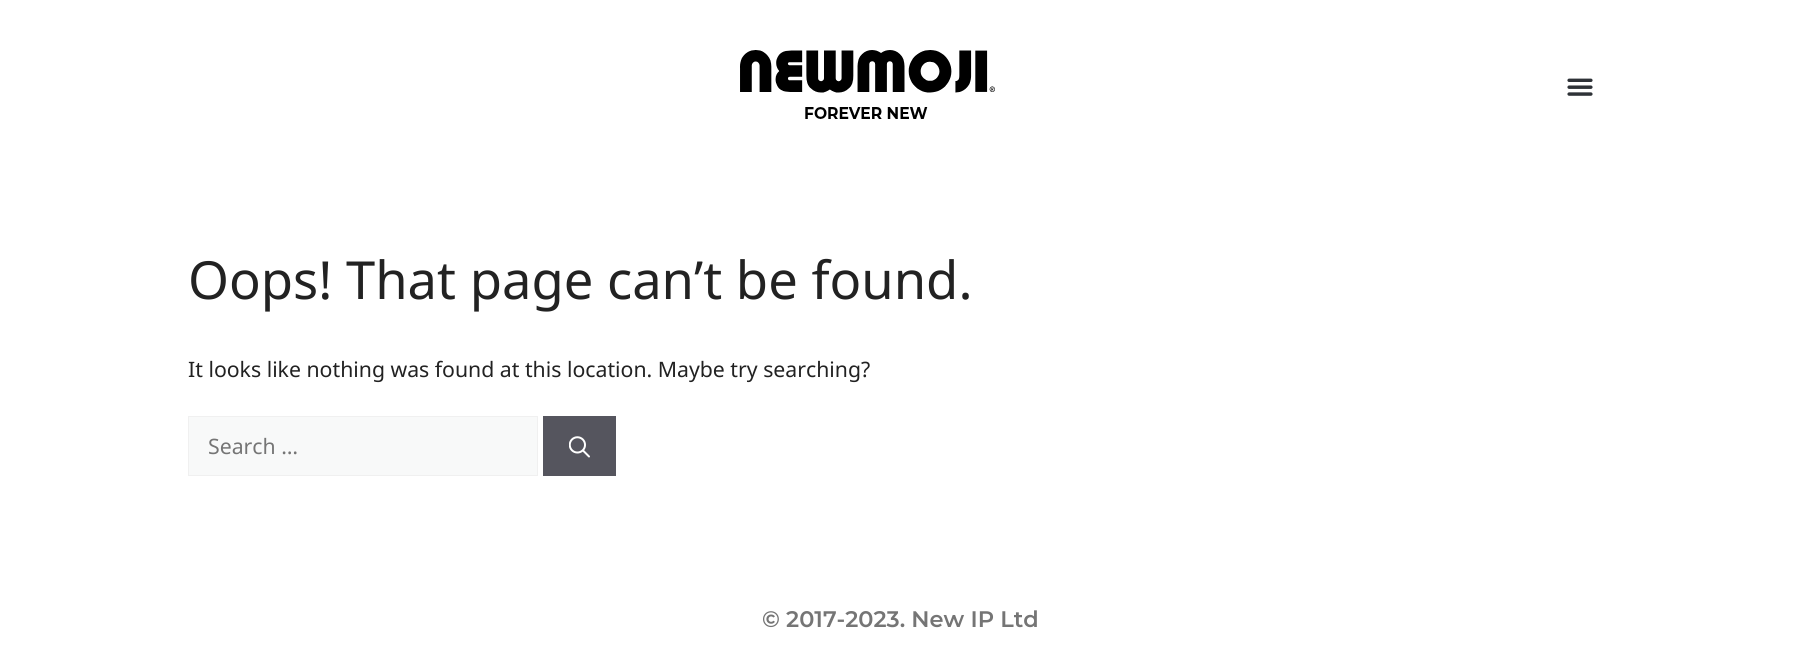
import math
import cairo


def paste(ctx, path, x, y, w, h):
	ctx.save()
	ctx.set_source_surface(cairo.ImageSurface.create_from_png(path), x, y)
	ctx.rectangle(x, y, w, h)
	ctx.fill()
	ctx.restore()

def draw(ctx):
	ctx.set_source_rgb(1, 1, 1)
	ctx.paint()
	paste(ctx, 'media/1.png', 740, 50, 255, 69)
	paste(ctx, 'media/2.png', 1567, 78, 26, 18)
	ctx.select_font_face('Noto Sans')
	ctx.set_font_size(52.5)
	ctx.set_source_rgb(0.133, 0.133, 0.133)
	ctx.move_to(188, 299)
	ctx.show_text('Oops! That page can’t be found.')
	ctx.set_font_size(21.25)
	ctx.move_to(188, 377)
	ctx.show_text('It looks like nothing was found at this location. Maybe try searching?')
	ctx.set_source_rgb(0.969, 0.973, 0.976)
	ctx.rectangle(188.5, 416.5, 349, 59)
	ctx.fill_preserve()
	ctx.set_source_rgb(0.941, 0.941, 0.941)
	ctx.set_line_width(1)
	ctx.stroke()
	ctx.set_source_rgb(0.459, 0.459, 0.459)
	ctx.move_to(208, 454)
	ctx.show_text('Search …')
	ctx.set_source_rgb(0.333, 0.333, 0.369)
	ctx.rectangle(543, 416, 73, 60)
	ctx.fill()
	paste(ctx, 'media/3.png', 569, 436, 21, 22)
	ctx.select_font_face('Montserrat SemiBold')
	ctx.set_font_size(22.5)
	ctx.set_source_rgb(0.459, 0.459, 0.459)
	ctx.move_to(762, 627)
	ctx.show_text('© 2017-2023. New IP Ltd')


surface = cairo.ImageSurface(cairo.FORMAT_RGB24, 1799, 671)
ctx = cairo.Context(surface)
options = cairo.FontOptions()
options.set_hint_metrics(cairo.HINT_METRICS_OFF)
options.set_hint_style(cairo.HINT_STYLE_NONE)
ctx.set_font_options(options)
ctx.set_miter_limit(4)
draw(ctx)
surface.write_to_png('image.png')
